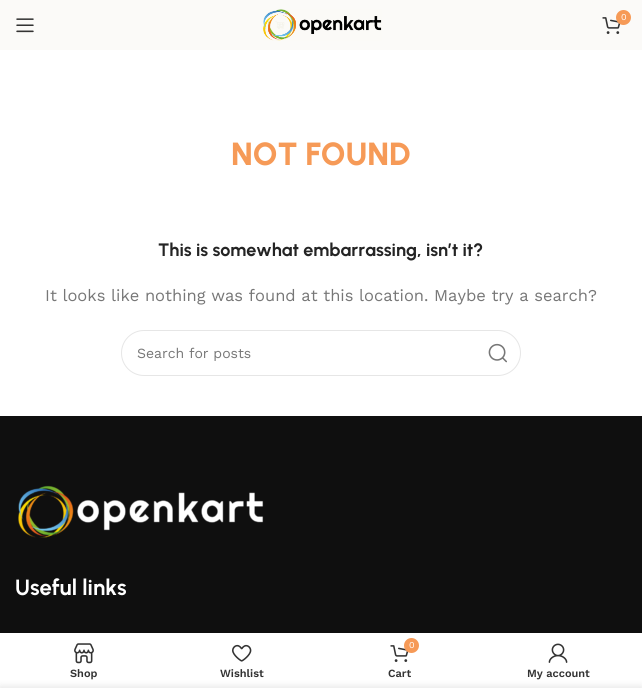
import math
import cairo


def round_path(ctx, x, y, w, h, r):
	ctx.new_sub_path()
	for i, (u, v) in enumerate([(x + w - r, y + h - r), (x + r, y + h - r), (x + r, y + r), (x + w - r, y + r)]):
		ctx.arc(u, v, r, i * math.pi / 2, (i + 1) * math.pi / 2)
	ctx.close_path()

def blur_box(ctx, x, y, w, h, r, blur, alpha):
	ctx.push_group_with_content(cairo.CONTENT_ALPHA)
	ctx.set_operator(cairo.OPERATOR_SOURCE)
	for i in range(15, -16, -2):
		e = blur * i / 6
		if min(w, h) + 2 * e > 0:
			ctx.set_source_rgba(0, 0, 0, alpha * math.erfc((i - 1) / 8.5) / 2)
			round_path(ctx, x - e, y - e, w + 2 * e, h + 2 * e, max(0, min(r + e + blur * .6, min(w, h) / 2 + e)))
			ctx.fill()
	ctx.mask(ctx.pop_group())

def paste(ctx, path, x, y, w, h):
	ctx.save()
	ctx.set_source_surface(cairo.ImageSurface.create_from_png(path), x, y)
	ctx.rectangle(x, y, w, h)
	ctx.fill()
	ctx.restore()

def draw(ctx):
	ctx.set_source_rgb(1, 1, 1)
	ctx.paint()
	ctx.set_source_rgb(0.984, 0.98, 0.969)
	ctx.rectangle(0, 0, 642, 50)
	ctx.fill()
	paste(ctx, 'media/1.png', 16, 18, 18, 15)
	paste(ctx, 'media/2.png', 263, 9, 119, 32)
	paste(ctx, 'media/3.png', 602, 17, 19, 17)
	ctx.set_source_rgb(0.961, 0.604, 0.341)
	ctx.arc(623.5, 17.5, 7.5, 0, 2 * math.pi)
	ctx.fill()
	ctx.select_font_face('Work Sans')
	ctx.set_font_size(9)
	ctx.set_source_rgb(1, 1, 1)
	ctx.move_to(621, 20)
	ctx.show_text('0')
	ctx.select_font_face('Urbanist ExtraBold')
	ctx.set_font_size(32)
	ctx.set_source_rgb(0.961, 0.604, 0.341)
	ctx.move_to(231, 165)
	ctx.show_text('NOT FOUND')
	ctx.select_font_face('Urbanist', cairo.FONT_SLANT_NORMAL, cairo.FONT_WEIGHT_BOLD)
	ctx.set_font_size(18)
	ctx.set_source_rgb(0.141, 0.141, 0.141)
	ctx.move_to(158, 256)
	ctx.show_text('This is somewhat embarrassing, isn’t it?')
	ctx.select_font_face('Work Sans')
	ctx.set_font_size(16.5)
	ctx.set_source_rgb(0.467, 0.467, 0.467)
	ctx.move_to(45, 301)
	ctx.show_text('It looks like nothing was found at this location. Maybe try a search?')
	round_path(ctx, 121.5, 330.5, 399, 45, 22.5)
	ctx.set_source_rgb(0.902, 0.902, 0.902)
	ctx.set_line_width(1)
	ctx.stroke()
	ctx.set_font_size(14)
	ctx.set_source_rgb(0.467, 0.467, 0.467)
	ctx.move_to(137, 358)
	ctx.show_text('Search for posts')
	paste(ctx, 'media/4.png', 488, 343, 19, 20)
	ctx.set_source_rgb(0.059, 0.059, 0.059)
	ctx.rectangle(0, 416, 642, 217)
	ctx.fill()
	paste(ctx, 'media/5.png', 18, 485, 246, 53)
	ctx.select_font_face('Urbanist', cairo.FONT_SLANT_NORMAL, cairo.FONT_WEIGHT_BOLD)
	ctx.set_font_size(22)
	ctx.set_source_rgb(1, 1, 1)
	ctx.move_to(15, 595)
	ctx.show_text('Useful links')
	paste(ctx, 'media/6.png', 74, 643, 20, 21)
	ctx.select_font_face('Work Sans SemiBold')
	ctx.set_font_size(11)
	ctx.set_source_rgb(0.2, 0.2, 0.2)
	ctx.move_to(70, 677)
	ctx.show_text('Shop')
	paste(ctx, 'media/7.png', 232, 644, 20, 18)
	ctx.move_to(220, 677)
	ctx.show_text('Wishlist')
	paste(ctx, 'media/8.png', 390, 645, 19, 17)
	ctx.set_source_rgb(0.961, 0.604, 0.341)
	ctx.arc(411.5, 645.5, 7.5, 0, 2 * math.pi)
	ctx.fill()
	ctx.select_font_face('Work Sans')
	ctx.set_font_size(9)
	ctx.set_source_rgb(1, 1, 1)
	ctx.move_to(409, 648)
	ctx.show_text('0')
	ctx.select_font_face('Work Sans SemiBold')
	ctx.set_font_size(11)
	ctx.set_source_rgb(0.2, 0.2, 0.2)
	ctx.move_to(388, 677)
	ctx.show_text('Cart')
	paste(ctx, 'media/9.png', 548, 643, 20, 20)
	ctx.move_to(527, 677)
	ctx.show_text('My account')
	ctx.set_source_rgb(0, 0, 0)
	blur_box(ctx, 0, 688, 642, 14, 0, 4.5, 0.14)


surface = cairo.ImageSurface(cairo.FORMAT_RGB24, 642, 688)
ctx = cairo.Context(surface)
options = cairo.FontOptions()
options.set_hint_metrics(cairo.HINT_METRICS_OFF)
options.set_hint_style(cairo.HINT_STYLE_NONE)
ctx.set_font_options(options)
ctx.set_miter_limit(4)
draw(ctx)
surface.write_to_png('image.png')
